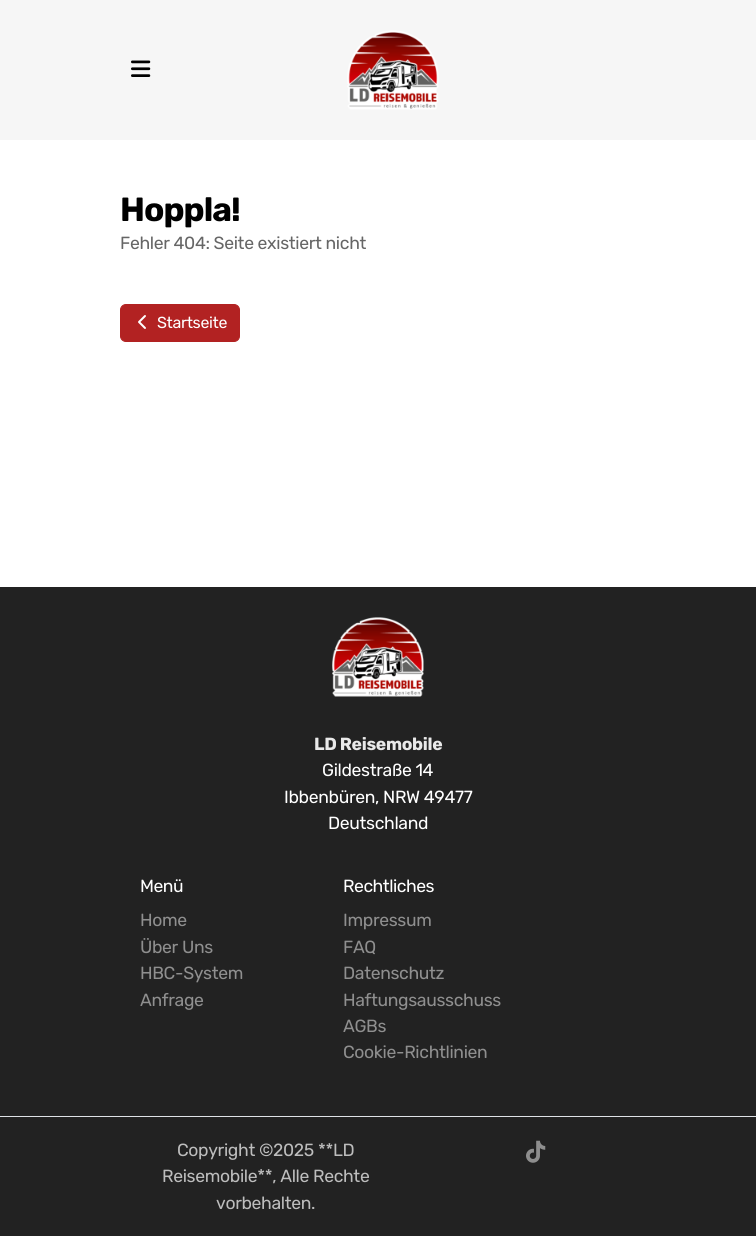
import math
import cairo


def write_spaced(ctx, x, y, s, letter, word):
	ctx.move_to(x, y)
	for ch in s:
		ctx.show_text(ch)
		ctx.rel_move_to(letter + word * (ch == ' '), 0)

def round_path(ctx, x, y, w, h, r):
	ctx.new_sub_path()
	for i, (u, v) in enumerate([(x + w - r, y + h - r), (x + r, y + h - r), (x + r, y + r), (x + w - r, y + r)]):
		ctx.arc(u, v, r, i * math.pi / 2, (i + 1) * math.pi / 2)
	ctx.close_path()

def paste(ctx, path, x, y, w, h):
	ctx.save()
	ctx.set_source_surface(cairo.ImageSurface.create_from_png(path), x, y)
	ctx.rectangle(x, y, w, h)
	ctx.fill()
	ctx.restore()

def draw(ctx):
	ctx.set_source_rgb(1, 1, 1)
	ctx.paint()
	ctx.set_source_rgb(0.961, 0.961, 0.961)
	ctx.rectangle(0, 0, 756, 140)
	ctx.fill()
	paste(ctx, 'media/1.png', 131, 60, 20, 17)
	paste(ctx, 'media/2.png', 347, 30, 92, 80)
	ctx.select_font_face('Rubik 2 Light')
	ctx.set_font_size(33.5)
	ctx.set_source_rgb(0, 0, 0)
	write_spaced(ctx, 120, 221, 'Hoppla!', -1, 0)
	ctx.select_font_face('Rubik Light')
	ctx.set_font_size(17.6)
	ctx.set_source_rgb(0.4, 0.4, 0.4)
	write_spaced(ctx, 120, 249, 'Fehler 404: Seite existiert nicht', -0.35, 0)
	ctx.set_source_rgb(0.698, 0.133, 0.133)
	round_path(ctx, 120.5, 304.5, 119, 37, 5.5)
	ctx.fill_preserve()
	ctx.set_line_width(1)
	ctx.stroke()
	paste(ctx, 'media/3.png', 138, 315, 8, 14)
	ctx.set_font_size(16)
	ctx.set_source_rgb(1, 1, 1)
	write_spaced(ctx, 157, 328, 'Startseite', -0.35, 0)
	ctx.set_source_rgb(0.133, 0.133, 0.133)
	ctx.rectangle(0, 587, 756, 649)
	ctx.fill()
	paste(ctx, 'media/4.png', 332, 617, 92, 80)
	ctx.select_font_face('Rubik 2 Light')
	ctx.set_font_size(17.6)
	ctx.set_source_rgb(0.914, 0.914, 0.914)
	write_spaced(ctx, 314, 750, 'LD Reisemobile', -0.35, 0)
	ctx.select_font_face('Rubik Light')
	ctx.set_source_rgb(1, 1, 1)
	for x, y, s in [
		(322, 776, 'Gildestraße 14'),
		(284, 803, 'Ibbenbüren, NRW 49477'),
		(328, 829, 'Deutschland'),
	]:
		write_spaced(ctx, x, y, s, -0.35, 0)
	write_spaced(ctx, 140, 892, 'Menü', -0.5, 0)
	ctx.set_source_rgb(0.561, 0.561, 0.561)
	for x, y, s in [
		(140, 926, 'Home'),
		(140, 953, 'Über Uns'),
		(140, 979, 'HBC-System'),
		(140, 1006, 'Anfrage'),
	]:
		write_spaced(ctx, x, y, s, -0.35, 0)
	ctx.set_source_rgb(1, 1, 1)
	write_spaced(ctx, 343, 892, 'Rechtliches', -0.5, 0)
	ctx.set_source_rgb(0.561, 0.561, 0.561)
	for x, y, s in [
		(343, 926, 'Impressum'),
		(343, 953, 'FAQ'),
		(343, 979, 'Datenschutz'),
		(343, 1006, 'Haftungsausschuss'),
		(343, 1032, 'AGBs'),
		(343, 1058, 'Cookie-Richtlinien'),
	]:
		write_spaced(ctx, x, y, s, -0.35, 0)
	ctx.set_source_rgb(0.871, 0.886, 0.902)
	ctx.rectangle(0, 1116, 756, 1)
	ctx.fill()
	ctx.set_source_rgb(0.741, 0.741, 0.741)
	for x, y, s in [
		(177, 1156, 'Copyright ©2025 **LD'),
		(162, 1182, 'Reisemobile**, Alle Rechte'),
		(216, 1209, 'vorbehalten.'),
	]:
		write_spaced(ctx, x, y, s, -0.35, 0)
	paste(ctx, 'media/5.png', 526, 1140, 20, 23)


surface = cairo.ImageSurface(cairo.FORMAT_RGB24, 756, 1236)
ctx = cairo.Context(surface)
options = cairo.FontOptions()
options.set_hint_metrics(cairo.HINT_METRICS_OFF)
options.set_hint_style(cairo.HINT_STYLE_NONE)
ctx.set_font_options(options)
ctx.set_miter_limit(4)
draw(ctx)
surface.write_to_png('image.png')
